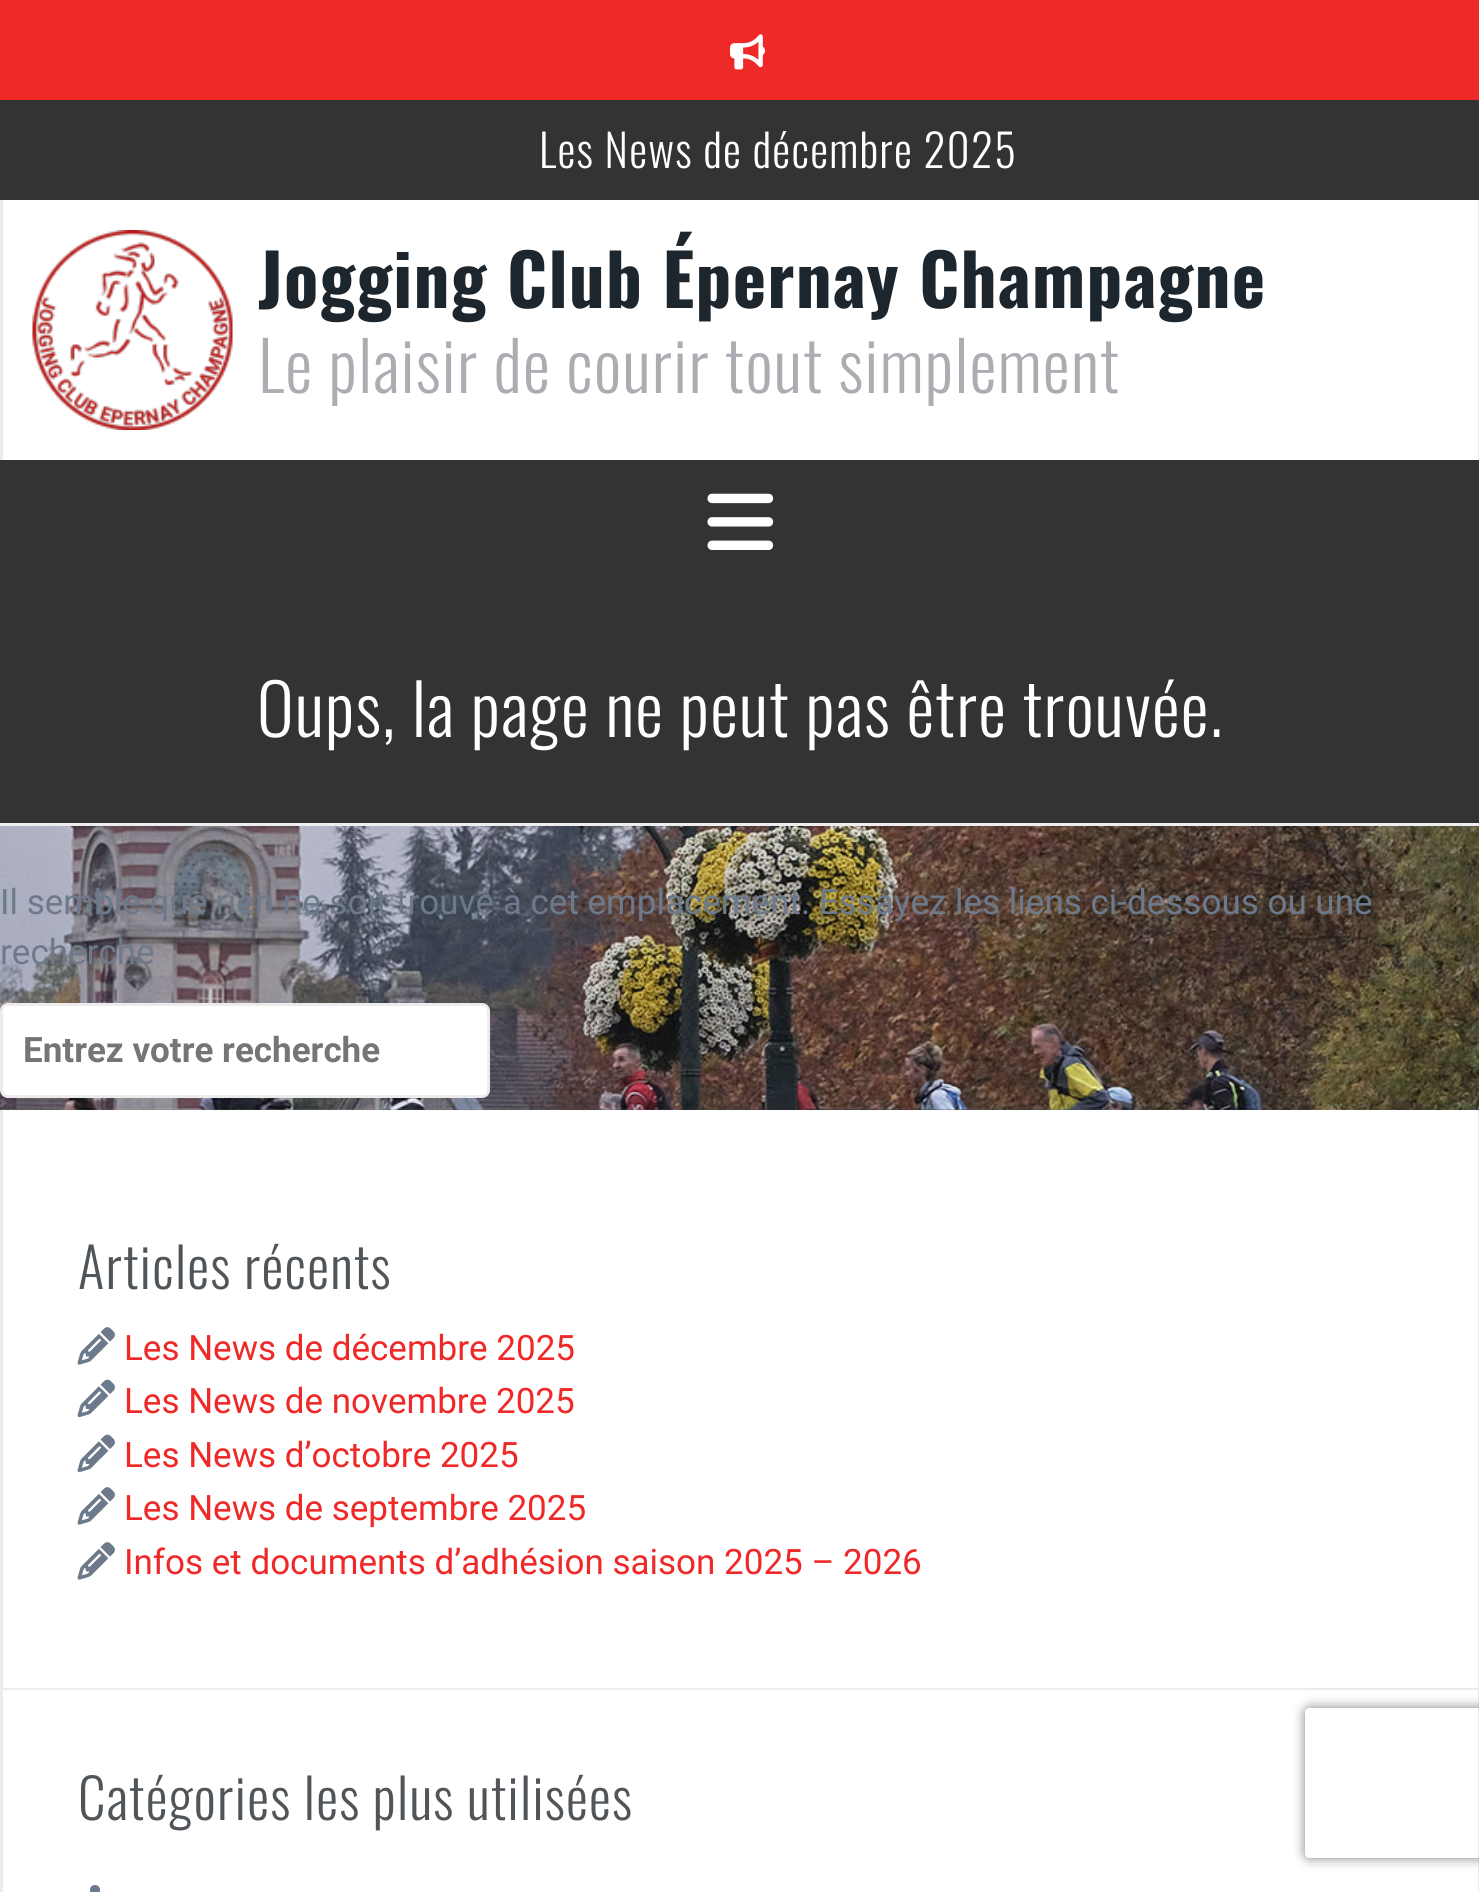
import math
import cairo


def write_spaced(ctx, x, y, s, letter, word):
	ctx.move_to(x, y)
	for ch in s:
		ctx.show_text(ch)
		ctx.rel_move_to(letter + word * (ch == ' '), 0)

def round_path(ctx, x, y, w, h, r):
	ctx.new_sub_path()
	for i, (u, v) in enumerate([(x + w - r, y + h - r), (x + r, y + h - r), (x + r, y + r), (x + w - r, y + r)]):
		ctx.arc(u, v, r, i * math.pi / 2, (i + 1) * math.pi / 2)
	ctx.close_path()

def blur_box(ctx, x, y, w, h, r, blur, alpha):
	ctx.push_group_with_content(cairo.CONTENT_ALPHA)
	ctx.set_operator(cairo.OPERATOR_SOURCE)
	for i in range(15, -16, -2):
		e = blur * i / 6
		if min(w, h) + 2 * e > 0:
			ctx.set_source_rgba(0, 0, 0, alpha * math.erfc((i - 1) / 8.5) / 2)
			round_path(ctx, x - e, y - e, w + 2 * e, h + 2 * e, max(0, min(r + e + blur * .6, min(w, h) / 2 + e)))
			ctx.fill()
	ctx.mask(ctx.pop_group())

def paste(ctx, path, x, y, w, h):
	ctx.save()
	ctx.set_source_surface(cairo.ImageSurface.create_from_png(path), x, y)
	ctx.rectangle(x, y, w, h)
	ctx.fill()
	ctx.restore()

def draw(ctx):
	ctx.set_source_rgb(1, 1, 1)
	ctx.paint()
	paste(ctx, 'media/1.png', 0, 826, 1479, 284)
	ctx.set_source_rgb(0.937, 0.157, 0.157)
	ctx.rectangle(0, 0, 1479, 100)
	ctx.fill()
	paste(ctx, 'media/2.png', 730, 34, 35, 36)
	ctx.set_source_rgb(0.2, 0.2, 0.2)
	ctx.rectangle(0, 100, 1479, 100)
	ctx.fill()
	ctx.select_font_face('Oswald Light')
	ctx.set_font_size(45)
	ctx.set_source_rgb(1, 1, 1)
	write_spaced(ctx, 539, 168, 'Les News de décembre 2025', 1.25, 0)
	ctx.set_source_rgb(0.922, 0.922, 0.922)
	ctx.rectangle(1478, 200, 1, 260)
	ctx.fill()
	ctx.rectangle(0, 200, 3, 260)
	ctx.fill()
	paste(ctx, 'media/3.png', 32, 230, 201, 200)
	ctx.select_font_face('Oswald', cairo.FONT_SLANT_NORMAL, cairo.FONT_WEIGHT_BOLD)
	ctx.set_font_size(71)
	ctx.set_source_rgb(0.118, 0.149, 0.176)
	write_spaced(ctx, 258, 308, 'Jogging Club Épernay Champagne', 1.25, 0)
	ctx.select_font_face('Oswald Light')
	ctx.set_font_size(68.1)
	ctx.set_source_rgb(0.671, 0.678, 0.698)
	write_spaced(ctx, 258, 393, 'Le plaisir de courir tout simplement', 1.25, 0)
	ctx.set_source_rgb(0.2, 0.2, 0.2)
	ctx.rectangle(0, 460, 1479, 363)
	ctx.fill()
	paste(ctx, 'media/4.png', 707, 493, 67, 57)
	ctx.set_source_rgb(0.933, 0.933, 0.933)
	ctx.rectangle(0, 823, 1479, 3)
	ctx.fill()
	ctx.set_font_size(70)
	ctx.set_source_rgb(1, 1, 1)
	write_spaced(ctx, 257, 737, 'Oups, la page ne peut pas être trouvée.', 1.25, 0)
	ctx.select_font_face('Roboto')
	ctx.set_font_size(35)
	ctx.set_source_rgb(0.427, 0.478, 0.549)
	ctx.move_to(0, 914)
	ctx.show_text('Il semble que rien ne soit trouvé à cet emplacement. Essayez les liens ci-dessous ou une')
	ctx.move_to(0, 964)
	ctx.show_text('recherche')
	ctx.set_source_rgb(1, 1, 1)
	round_path(ctx, 1.5, 1004.5, 487, 92, 6.5)
	ctx.fill_preserve()
	ctx.set_source_rgb(0.922, 0.922, 0.922)
	ctx.set_line_width(3)
	ctx.stroke()
	ctx.select_font_face('Roboto', cairo.FONT_SLANT_NORMAL, cairo.FONT_WEIGHT_BOLD)
	ctx.set_source_rgb(0.459, 0.459, 0.459)
	ctx.move_to(23, 1062)
	ctx.show_text('Entrez votre recherche')
	ctx.set_source_rgb(0.922, 0.922, 0.922)
	ctx.rectangle(1478, 1110, 1, 782)
	ctx.rectangle(0, 1688, 1479, 2)
	ctx.rectangle(0, 1110, 3, 782)
	ctx.fill()
	ctx.select_font_face('Oswald Light')
	ctx.set_font_size(55)
	ctx.set_source_rgb(0.314, 0.333, 0.349)
	write_spaced(ctx, 78, 1289, 'Articles récents', 1.25, 0)
	paste(ctx, 'media/5.png', 77, 1327, 38, 38)
	ctx.select_font_face('Roboto')
	ctx.set_font_size(35)
	ctx.set_source_rgb(0.937, 0.157, 0.157)
	ctx.move_to(124, 1360)
	ctx.show_text('Les News de décembre 2025')
	paste(ctx, 'media/6.png', 77, 1379, 38, 39)
	ctx.move_to(124, 1413)
	ctx.show_text('Les News de novembre 2025')
	paste(ctx, 'media/6.png', 77, 1434, 38, 39)
	ctx.move_to(124, 1467)
	ctx.show_text('Les News d’octobre 2025')
	paste(ctx, 'media/5.png', 77, 1487, 38, 38)
	ctx.move_to(124, 1520)
	ctx.show_text('Les News de septembre 2025')
	paste(ctx, 'media/5.png', 77, 1542, 38, 38)
	ctx.move_to(124, 1574)
	ctx.show_text('Infos et documents d’adhésion saison 2025 – 2026')
	ctx.select_font_face('Oswald Light')
	ctx.set_font_size(55)
	ctx.set_source_rgb(0.314, 0.333, 0.349)
	write_spaced(ctx, 78, 1820, 'Catégories les plus utilisées', 1.25, 0)
	ctx.set_source_rgb(0.427, 0.478, 0.549)
	ctx.new_path()
	ctx.arc(95, 1890, 5, 0, 2 * math.pi)
	ctx.fill()
	ctx.save()
	ctx.set_fill_rule(cairo.FILL_RULE_EVEN_ODD)
	ctx.new_path()
	ctx.move_to(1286, 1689)
	ctx.line_to(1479, 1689)
	ctx.line_to(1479, 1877)
	ctx.line_to(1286, 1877)
	ctx.close_path()
	ctx.move_to(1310, 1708)
	ctx.line_to(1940, 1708)
	ctx.curve_to(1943, 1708, 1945, 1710, 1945, 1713)
	ctx.line_to(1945, 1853)
	ctx.curve_to(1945, 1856, 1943, 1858, 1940, 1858)
	ctx.line_to(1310, 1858)
	ctx.curve_to(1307, 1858, 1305, 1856, 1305, 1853)
	ctx.line_to(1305, 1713)
	ctx.curve_to(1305, 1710, 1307, 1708, 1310, 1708)
	ctx.close_path()
	ctx.clip()
	ctx.set_source_rgb(0.502, 0.502, 0.502)
	blur_box(ctx, 1305, 1708, 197, 150, 5, 6, 1)
	ctx.restore()


surface = cairo.ImageSurface(cairo.FORMAT_RGB24, 1479, 1892)
ctx = cairo.Context(surface)
options = cairo.FontOptions()
options.set_hint_metrics(cairo.HINT_METRICS_OFF)
options.set_hint_style(cairo.HINT_STYLE_NONE)
ctx.set_font_options(options)
ctx.set_miter_limit(4)
draw(ctx)
surface.write_to_png('image.png')
